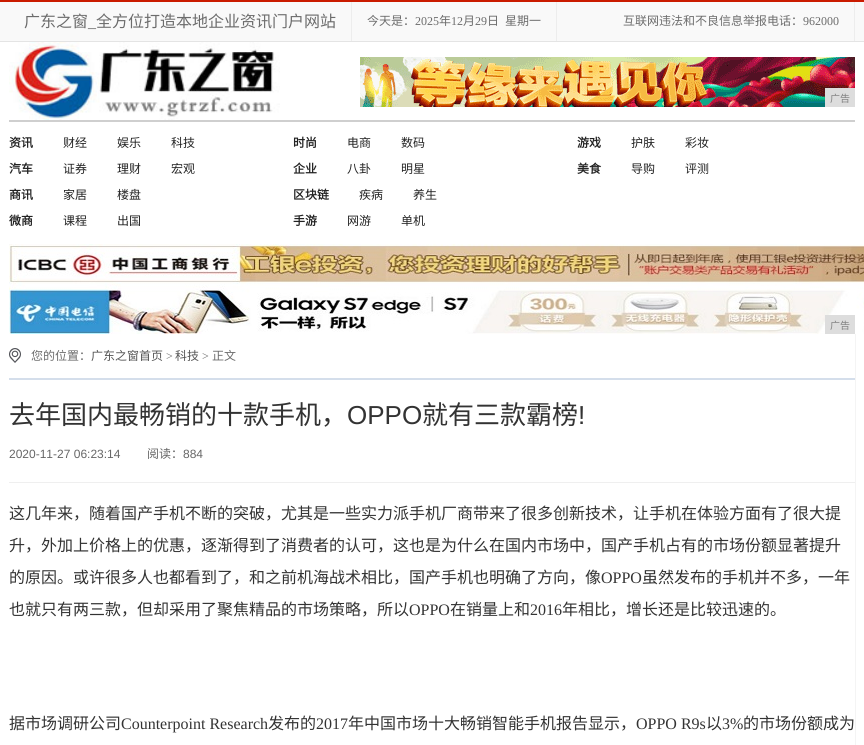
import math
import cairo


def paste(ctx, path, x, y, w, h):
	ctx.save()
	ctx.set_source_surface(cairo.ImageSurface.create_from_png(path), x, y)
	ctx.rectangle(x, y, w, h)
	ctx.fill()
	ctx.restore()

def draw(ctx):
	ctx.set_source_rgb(1, 1, 1)
	ctx.paint()
	ctx.set_source_rgb(0.976, 0.976, 0.976)
	ctx.rectangle(0, 2, 864, 39)
	ctx.fill()
	ctx.set_source_rgb(0.792, 0.106, 0)
	ctx.rectangle(0, 0, 864, 2)
	ctx.fill()
	ctx.set_source_rgb(0.894, 0.894, 0.894)
	ctx.rectangle(0, 41, 864, 1)
	ctx.fill()
	ctx.set_source_rgb(0.929, 0.929, 0.929)
	ctx.rectangle(351, 2, 1, 39)
	ctx.fill()
	ctx.select_font_face('Noto Sans CJK SC')
	ctx.set_font_size(16)
	ctx.set_source_rgb(0.424, 0.424, 0.424)
	ctx.move_to(24, 27)
	ctx.show_text('广东之窗')
	ctx.select_font_face('Liberation Serif')
	ctx.move_to(88, 27)
	ctx.show_text('_')
	ctx.select_font_face('Noto Sans CJK SC')
	ctx.move_to(96, 27)
	ctx.show_text('全方位打造本地企业资讯门户网站')
	ctx.set_source_rgb(0.929, 0.929, 0.929)
	ctx.rectangle(556, 2, 1, 39)
	ctx.fill()
	ctx.set_font_size(12)
	ctx.set_source_rgb(0.424, 0.424, 0.424)
	ctx.move_to(367, 25)
	ctx.show_text('今天是：')
	ctx.select_font_face('Liberation Serif')
	ctx.move_to(415, 25)
	ctx.show_text('2025')
	ctx.select_font_face('Noto Sans CJK SC')
	ctx.move_to(439, 25)
	ctx.show_text('年')
	ctx.select_font_face('Liberation Serif')
	ctx.move_to(451, 25)
	ctx.show_text('12')
	ctx.select_font_face('Noto Sans CJK SC')
	ctx.move_to(463, 25)
	ctx.show_text('月')
	ctx.select_font_face('Liberation Serif')
	ctx.move_to(475, 25)
	ctx.show_text('29')
	ctx.select_font_face('Noto Sans CJK SC')
	ctx.move_to(487, 25)
	ctx.show_text('日')
	ctx.move_to(505, 25)
	ctx.show_text('星期一')
	ctx.set_source_rgb(0.929, 0.929, 0.929)
	ctx.rectangle(854, 2, 1, 39)
	ctx.fill()
	ctx.set_source_rgb(0.424, 0.424, 0.424)
	ctx.move_to(623, 25)
	ctx.show_text('互联网违法和不良信息举报电话：')
	ctx.select_font_face('Liberation Serif')
	ctx.move_to(803, 25)
	ctx.show_text('962000')
	ctx.set_source_rgb(0.812, 0.812, 0.812)
	ctx.rectangle(9, 120, 846, 2)
	ctx.fill()
	paste(ctx, 'media/1.png', 9, 42, 271, 78)
	paste(ctx, 'media/2.png', 360, 57, 495, 50)
	ctx.set_source_rgb(0.867, 0.867, 0.867)
	ctx.rectangle(825, 88, 30, 19)
	ctx.fill()
	ctx.select_font_face('Noto Sans CJK SC')
	ctx.set_font_size(10)
	ctx.set_source_rgb(0.502, 0.502, 0.502)
	ctx.move_to(830, 102)
	ctx.show_text('广告')
	ctx.select_font_face('Noto Sans CJK SC', cairo.FONT_SLANT_NORMAL, cairo.FONT_WEIGHT_BOLD)
	ctx.set_font_size(12)
	ctx.set_source_rgb(0.133, 0.133, 0.133)
	ctx.move_to(9, 147)
	ctx.show_text('资讯')
	ctx.select_font_face('Noto Sans CJK SC')
	for x, y, s in [
		(63, 147, '财经'),
		(117, 147, '娱乐'),
		(171, 147, '科技'),
	]:
		ctx.move_to(x, y)
		ctx.show_text(s)
	ctx.select_font_face('Noto Sans CJK SC', cairo.FONT_SLANT_NORMAL, cairo.FONT_WEIGHT_BOLD)
	ctx.move_to(9, 173)
	ctx.show_text('汽车')
	ctx.select_font_face('Noto Sans CJK SC')
	for x, y, s in [
		(63, 173, '证券'),
		(117, 173, '理财'),
		(171, 173, '宏观'),
	]:
		ctx.move_to(x, y)
		ctx.show_text(s)
	ctx.select_font_face('Noto Sans CJK SC', cairo.FONT_SLANT_NORMAL, cairo.FONT_WEIGHT_BOLD)
	ctx.move_to(293, 147)
	ctx.show_text('时尚')
	ctx.select_font_face('Noto Sans CJK SC')
	ctx.move_to(347, 147)
	ctx.show_text('电商')
	ctx.move_to(401, 147)
	ctx.show_text('数码')
	ctx.select_font_face('Noto Sans CJK SC', cairo.FONT_SLANT_NORMAL, cairo.FONT_WEIGHT_BOLD)
	ctx.move_to(293, 173)
	ctx.show_text('企业')
	ctx.select_font_face('Noto Sans CJK SC')
	ctx.move_to(347, 173)
	ctx.show_text('八卦')
	ctx.move_to(401, 173)
	ctx.show_text('明星')
	ctx.select_font_face('Noto Sans CJK SC', cairo.FONT_SLANT_NORMAL, cairo.FONT_WEIGHT_BOLD)
	ctx.move_to(577, 147)
	ctx.show_text('游戏')
	ctx.select_font_face('Noto Sans CJK SC')
	ctx.move_to(631, 147)
	ctx.show_text('护肤')
	ctx.move_to(685, 147)
	ctx.show_text('彩妆')
	ctx.select_font_face('Noto Sans CJK SC', cairo.FONT_SLANT_NORMAL, cairo.FONT_WEIGHT_BOLD)
	ctx.move_to(577, 173)
	ctx.show_text('美食')
	ctx.select_font_face('Noto Sans CJK SC')
	ctx.move_to(631, 173)
	ctx.show_text('导购')
	ctx.move_to(685, 173)
	ctx.show_text('评测')
	ctx.select_font_face('Noto Sans CJK SC', cairo.FONT_SLANT_NORMAL, cairo.FONT_WEIGHT_BOLD)
	ctx.move_to(9, 199)
	ctx.show_text('商讯')
	ctx.select_font_face('Noto Sans CJK SC')
	ctx.move_to(63, 199)
	ctx.show_text('家居')
	ctx.move_to(117, 199)
	ctx.show_text('楼盘')
	ctx.select_font_face('Noto Sans CJK SC', cairo.FONT_SLANT_NORMAL, cairo.FONT_WEIGHT_BOLD)
	ctx.move_to(9, 225)
	ctx.show_text('微商')
	ctx.select_font_face('Noto Sans CJK SC')
	ctx.move_to(63, 225)
	ctx.show_text('课程')
	ctx.move_to(117, 225)
	ctx.show_text('出国')
	ctx.select_font_face('Noto Sans CJK SC', cairo.FONT_SLANT_NORMAL, cairo.FONT_WEIGHT_BOLD)
	ctx.move_to(293, 199)
	ctx.show_text('区块链')
	ctx.select_font_face('Noto Sans CJK SC')
	ctx.move_to(359, 199)
	ctx.show_text('疾病')
	ctx.move_to(413, 199)
	ctx.show_text('养生')
	ctx.select_font_face('Noto Sans CJK SC', cairo.FONT_SLANT_NORMAL, cairo.FONT_WEIGHT_BOLD)
	ctx.move_to(293, 225)
	ctx.show_text('手游')
	ctx.select_font_face('Noto Sans CJK SC')
	ctx.move_to(347, 225)
	ctx.show_text('网游')
	ctx.move_to(401, 225)
	ctx.show_text('单机')
	paste(ctx, 'media/3.png', 9, 244, 855, 90)
	ctx.set_source_rgb(0.867, 0.867, 0.867)
	ctx.rectangle(825, 315, 30, 19)
	ctx.fill()
	ctx.set_font_size(10)
	ctx.set_source_rgb(0.502, 0.502, 0.502)
	ctx.move_to(830, 329)
	ctx.show_text('广告')
	ctx.set_source_rgb(0.957, 0.957, 0.957)
	ctx.rectangle(855, 334, 1, 411)
	ctx.fill()
	paste(ctx, 'media/4.png', 9, 348, 12, 15)
	ctx.set_font_size(12)
	ctx.set_source_rgb(0.424, 0.424, 0.424)
	ctx.move_to(31, 360)
	ctx.show_text('您的位置：')
	ctx.set_source_rgb(0.329, 0.329, 0.329)
	ctx.move_to(91, 360)
	ctx.show_text('广东之窗首页')
	ctx.select_font_face('Liberation Serif')
	ctx.set_source_rgb(0.424, 0.424, 0.424)
	ctx.move_to(166, 360)
	ctx.show_text('>')
	ctx.select_font_face('Noto Sans CJK SC')
	ctx.set_source_rgb(0.329, 0.329, 0.329)
	ctx.move_to(175, 360)
	ctx.show_text('科技')
	ctx.select_font_face('Liberation Serif')
	ctx.set_source_rgb(0.424, 0.424, 0.424)
	ctx.move_to(202, 360)
	ctx.show_text('>')
	ctx.select_font_face('Noto Sans CJK SC')
	ctx.move_to(212, 360)
	ctx.show_text('正文')
	ctx.set_source_rgb(0.831, 0.871, 0.918)
	ctx.rectangle(9, 378, 846, 2)
	ctx.fill()
	ctx.set_font_size(26)
	ctx.set_source_rgb(0.2, 0.2, 0.2)
	ctx.move_to(9, 424)
	ctx.show_text('去年国内最畅销的十款手机，')
	ctx.select_font_face('Liberation Sans')
	ctx.move_to(347, 424)
	ctx.show_text('OPPO')
	ctx.select_font_face('Noto Sans CJK SC')
	ctx.move_to(422, 424)
	ctx.show_text('就有三款霸榜')
	ctx.select_font_face('Liberation Sans')
	ctx.move_to(578, 424)
	ctx.show_text('!')
	ctx.set_source_rgb(0.937, 0.937, 0.937)
	ctx.rectangle(9, 482, 846, 1)
	ctx.fill()
	ctx.set_font_size(12)
	ctx.set_source_rgb(0.4, 0.4, 0.4)
	ctx.move_to(9, 458)
	ctx.show_text('2020-11-27 06:23:14')
	ctx.select_font_face('Noto Sans CJK SC')
	ctx.move_to(147, 458)
	ctx.show_text('阅读：')
	ctx.select_font_face('Liberation Sans')
	ctx.move_to(183, 458)
	ctx.show_text('884')
	ctx.select_font_face('Noto Sans CJK SC')
	ctx.set_font_size(16)
	ctx.set_source_rgb(0.2, 0.2, 0.2)
	for x, y, s in [
		(9, 519, '这几年来，随着国产手机不断的突破，尤其是一些实力派手机厂商带来了很多创新技术，让手机在体验方面有了很大提'),
		(9, 551, '升，外加上价格上的优惠，逐渐得到了消费者的认可，这也是为什么在国内市场中，国产手机占有的市场份额显著提升'),
		(9, 583, '的原因。或许很多人也都看到了，和之前机海战术相比，国产手机也明确了方向，像'),
	]:
		ctx.move_to(x, y)
		ctx.show_text(s)
	ctx.select_font_face('Liberation Serif')
	ctx.move_to(601, 583)
	ctx.show_text('OPPO')
	ctx.select_font_face('Noto Sans CJK SC')
	ctx.move_to(642, 583)
	ctx.show_text('虽然发布的手机并不多，一年')
	ctx.move_to(9, 615)
	ctx.show_text('也就只有两三款，但却采用了聚焦精品的市场策略，所以')
	ctx.select_font_face('Liberation Serif')
	ctx.move_to(409, 615)
	ctx.show_text('OPPO')
	ctx.select_font_face('Noto Sans CJK SC')
	ctx.move_to(450, 615)
	ctx.show_text('在销量上和')
	ctx.select_font_face('Liberation Serif')
	ctx.move_to(530, 615)
	ctx.show_text('2016')
	ctx.select_font_face('Noto Sans CJK SC')
	ctx.move_to(562, 615)
	ctx.show_text('年相比，增长还是比较迅速的。')
	ctx.move_to(9, 729)
	ctx.show_text('据市场调研公司')
	ctx.select_font_face('Liberation Serif')
	ctx.move_to(121, 729)
	ctx.show_text('Counterpoint Research')
	ctx.select_font_face('Noto Sans CJK SC')
	ctx.move_to(268, 729)
	ctx.show_text('发布的')
	ctx.select_font_face('Liberation Serif')
	ctx.move_to(316, 729)
	ctx.show_text('2017')
	ctx.select_font_face('Noto Sans CJK SC')
	ctx.move_to(348, 729)
	ctx.show_text('年中国市场十大畅销智能手机报告显示，')
	ctx.select_font_face('Liberation Serif')
	ctx.move_to(636, 729)
	ctx.show_text('OPPO R9s')
	ctx.select_font_face('Noto Sans CJK SC')
	ctx.move_to(706, 729)
	ctx.show_text('以')
	ctx.select_font_face('Liberation Serif')
	ctx.move_to(722, 729)
	ctx.show_text('3%')
	ctx.select_font_face('Noto Sans CJK SC')
	ctx.move_to(743, 729)
	ctx.show_text('的市场份额成为')


surface = cairo.ImageSurface(cairo.FORMAT_RGB24, 864, 745)
ctx = cairo.Context(surface)
options = cairo.FontOptions()
options.set_hint_metrics(cairo.HINT_METRICS_OFF)
options.set_hint_style(cairo.HINT_STYLE_NONE)
ctx.set_font_options(options)
ctx.set_miter_limit(4)
draw(ctx)
surface.write_to_png('image.png')
